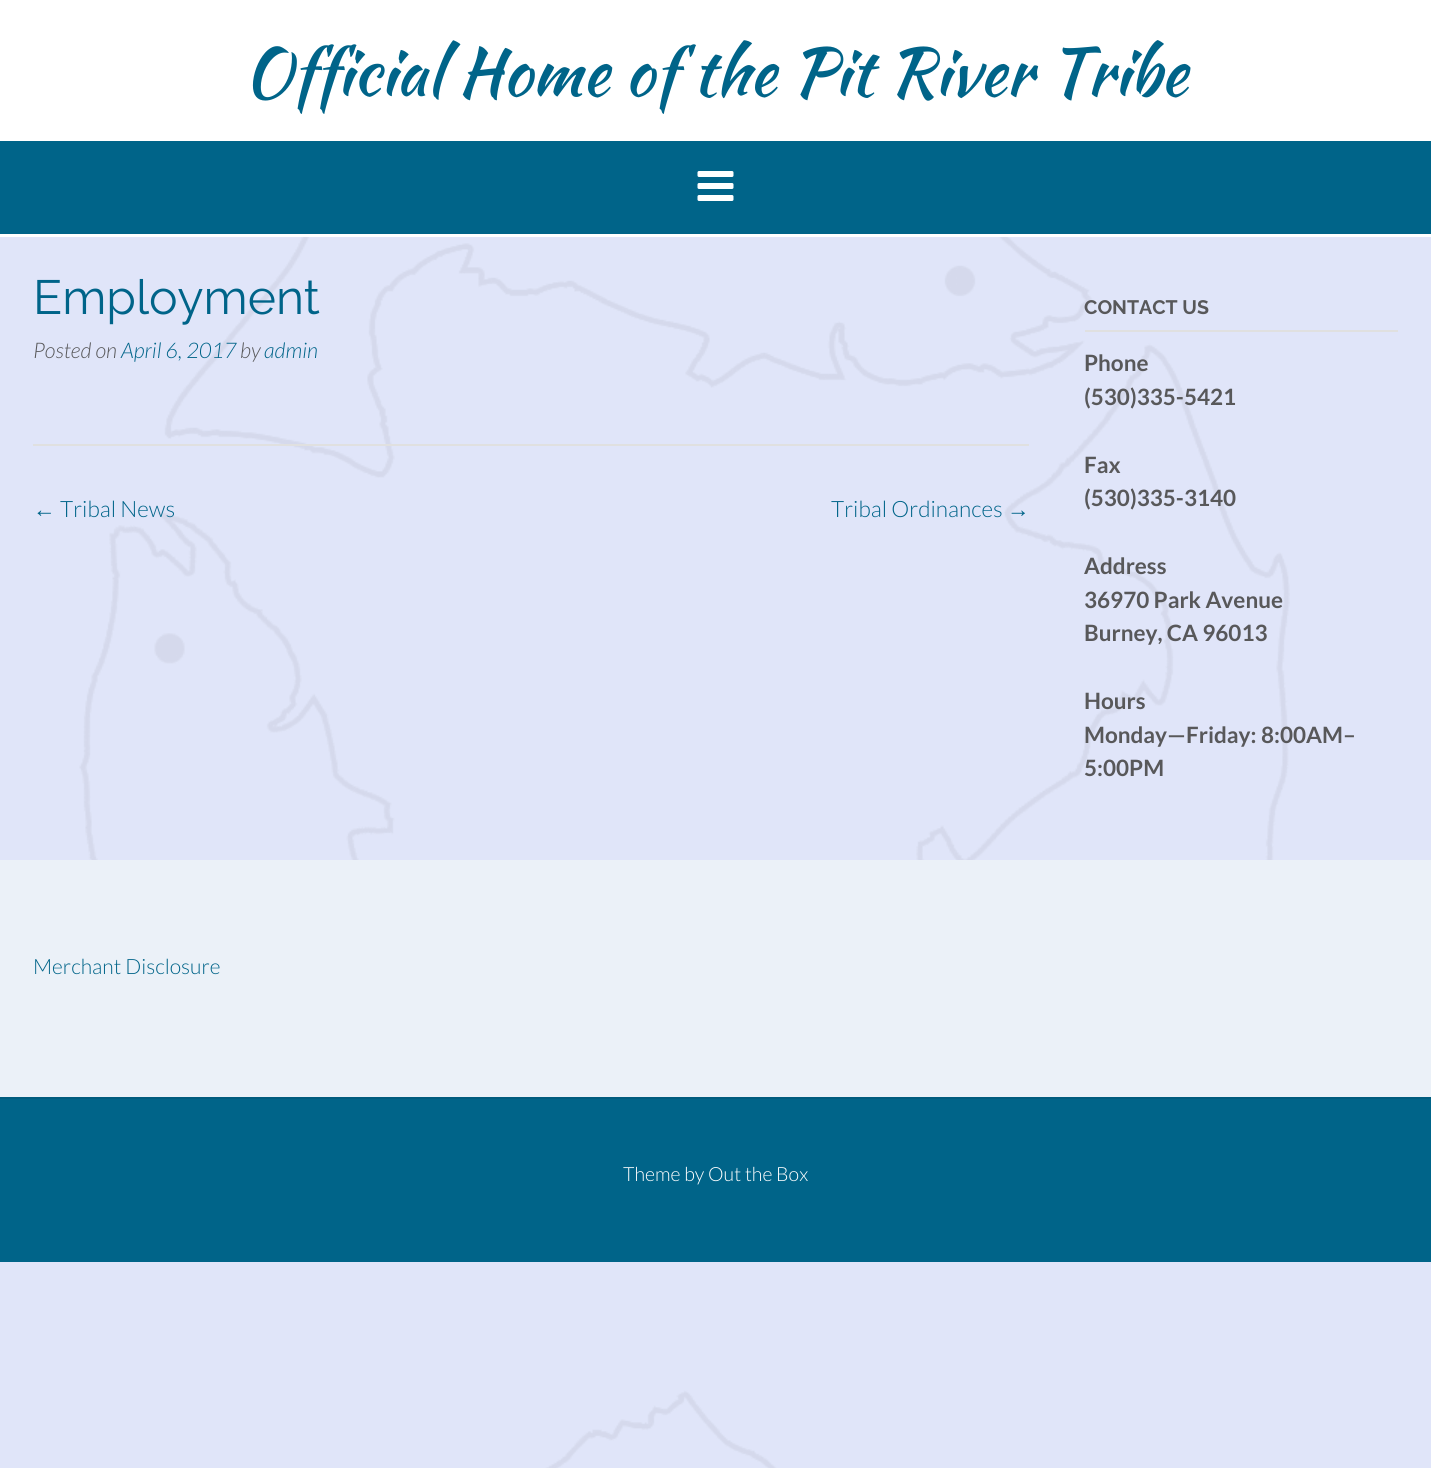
import math
import cairo


def paste(ctx, path, x, y, w, h):
	ctx.save()
	ctx.set_source_surface(cairo.ImageSurface.create_from_png(path), x, y)
	ctx.rectangle(x, y, w, h)
	ctx.fill()
	ctx.restore()

def draw(ctx):
	ctx.set_source_rgb(0.878, 0.898, 0.976)
	ctx.paint()
	paste(ctx, 'media/1.png', 79, 237, 1211, 1231)
	ctx.set_source_rgb(1, 1, 1)
	ctx.rectangle(0, 0, 1431, 141)
	ctx.fill()
	ctx.select_font_face('Kaushan Script')
	ctx.set_font_size(66)
	ctx.set_source_rgb(0, 0.392, 0.537)
	ctx.move_to(244, 95)
	ctx.show_text('Official Home of the Pit River Tribe')
	ctx.rectangle(0, 141, 1431, 93)
	ctx.fill()
	ctx.set_source_rgb(1, 1, 1)
	ctx.rectangle(0, 234, 1431, 3)
	ctx.fill()
	paste(ctx, 'media/2.png', 697, 171, 37, 30)
	ctx.set_source_rgb(0.878, 0.878, 0.878)
	ctx.rectangle(33, 444, 996, 2)
	ctx.fill()
	ctx.select_font_face('Raleway')
	ctx.set_font_size(48)
	ctx.set_source_rgb(0, 0.392, 0.537)
	ctx.move_to(33, 314)
	ctx.show_text('Employment')
	ctx.select_font_face('Lato Light', cairo.FONT_SLANT_ITALIC)
	ctx.set_font_size(21.5)
	ctx.set_source_rgb(0.345, 0.345, 0.353)
	ctx.move_to(33, 358)
	ctx.show_text('Posted on')
	ctx.set_source_rgb(0, 0.392, 0.537)
	ctx.move_to(121, 358)
	ctx.show_text('April 6, 2017')
	ctx.set_source_rgb(0.345, 0.345, 0.353)
	ctx.move_to(240, 358)
	ctx.show_text('by')
	ctx.set_source_rgb(0, 0.392, 0.537)
	ctx.move_to(264, 358)
	ctx.show_text('admin')
	ctx.select_font_face('Liberation Sans')
	ctx.set_font_size(22.5)
	ctx.move_to(33, 517)
	ctx.show_text('←')
	ctx.select_font_face('Lato Light')
	ctx.move_to(60, 517)
	ctx.show_text('Tribal News')
	ctx.move_to(831, 517)
	ctx.show_text('Tribal Ordinances')
	ctx.select_font_face('Liberation Sans')
	ctx.move_to(1007, 517)
	ctx.show_text('→')
	ctx.set_source_rgb(0.878, 0.878, 0.878)
	ctx.rectangle(1085, 330, 313, 2)
	ctx.fill()
	ctx.select_font_face('Raleway', cairo.FONT_SLANT_NORMAL, cairo.FONT_WEIGHT_BOLD)
	ctx.set_font_size(19.5)
	ctx.set_source_rgb(0.345, 0.345, 0.353)
	ctx.move_to(1084, 314)
	ctx.show_text('CONTACT US')
	ctx.select_font_face('Lato', cairo.FONT_SLANT_NORMAL, cairo.FONT_WEIGHT_BOLD)
	ctx.set_font_size(22.5)
	for x, y, s in [
		(1084, 371, 'Phone'),
		(1084, 405, '(530)335-5421'),
		(1084, 473, 'Fax'),
		(1084, 506, '(530)335-3140'),
		(1084, 574, 'Address'),
		(1084, 608, '36970 Park Avenue'),
		(1084, 641, 'Burney, CA 96013'),
		(1084, 709, 'Hours'),
		(1084, 743, 'Monday—Friday: 8:00AM–'),
		(1084, 776, '5:00PM'),
	]:
		ctx.move_to(x, y)
		ctx.show_text(s)
	ctx.set_source_rgb(0.918, 0.945, 0.969)
	ctx.rectangle(0, 860, 1431, 237)
	ctx.fill()
	ctx.select_font_face('Lato Light')
	ctx.set_font_size(21)
	ctx.set_source_rgb(0, 0.392, 0.537)
	ctx.move_to(33, 974)
	ctx.show_text('Merchant Disclosure')
	ctx.rectangle(0, 1099, 1431, 163)
	ctx.fill()
	ctx.set_source_rgb(0, 0.361, 0.494)
	ctx.rectangle(0, 1097, 1431, 2)
	ctx.fill()
	ctx.set_font_size(19.5)
	ctx.set_source_rgb(1, 1, 1)
	ctx.move_to(623, 1181)
	ctx.show_text('Theme by Out the Box')


surface = cairo.ImageSurface(cairo.FORMAT_RGB24, 1431, 1468)
ctx = cairo.Context(surface)
options = cairo.FontOptions()
options.set_hint_metrics(cairo.HINT_METRICS_OFF)
options.set_hint_style(cairo.HINT_STYLE_NONE)
ctx.set_font_options(options)
ctx.set_miter_limit(4)
draw(ctx)
surface.write_to_png('image.png')
